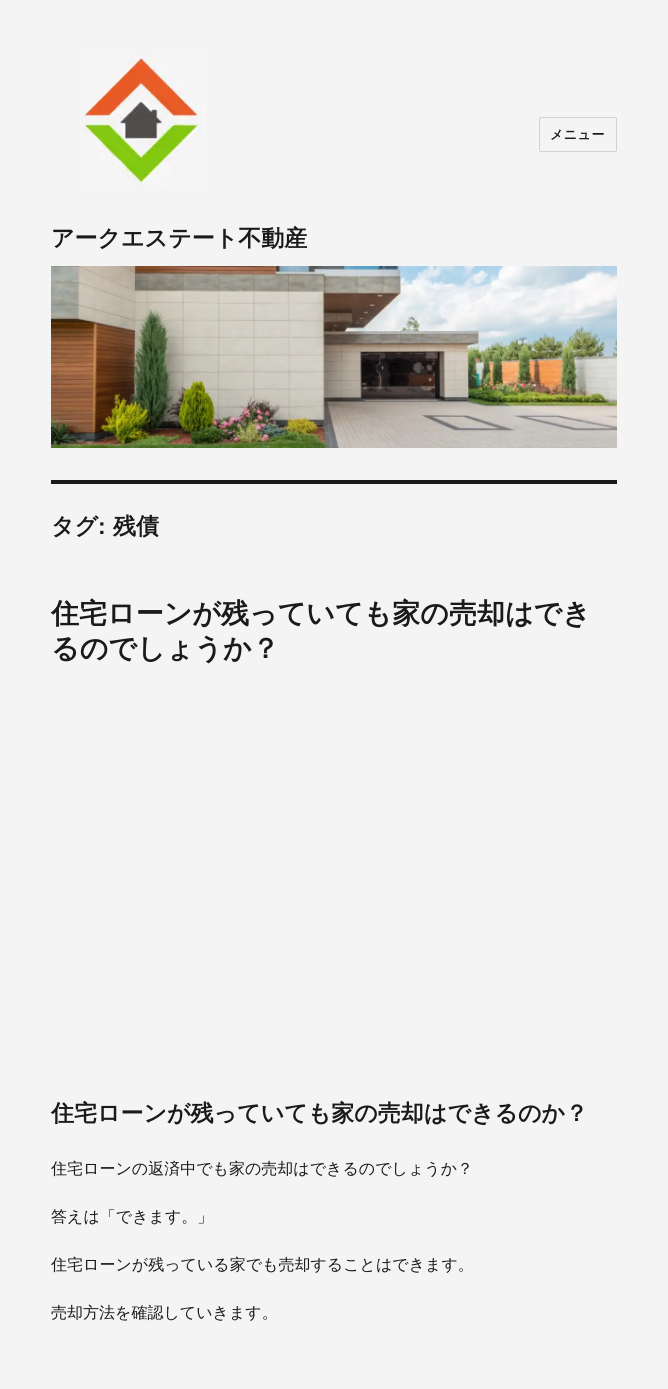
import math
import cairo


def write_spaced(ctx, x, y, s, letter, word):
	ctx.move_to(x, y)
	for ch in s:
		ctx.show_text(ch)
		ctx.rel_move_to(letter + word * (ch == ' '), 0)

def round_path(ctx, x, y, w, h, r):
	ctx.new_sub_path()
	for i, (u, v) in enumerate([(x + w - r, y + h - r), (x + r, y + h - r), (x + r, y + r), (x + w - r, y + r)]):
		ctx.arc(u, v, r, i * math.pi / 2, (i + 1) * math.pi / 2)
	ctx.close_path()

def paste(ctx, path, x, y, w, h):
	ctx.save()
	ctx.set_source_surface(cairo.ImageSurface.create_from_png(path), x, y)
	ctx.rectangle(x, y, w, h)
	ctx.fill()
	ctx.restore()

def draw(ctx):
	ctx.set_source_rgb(0.957, 0.957, 0.957)
	ctx.paint()
	round_path(ctx, 539.5, 117.5, 77, 34, 1.5)
	ctx.set_source_rgb(0.82, 0.82, 0.82)
	ctx.set_line_width(1)
	ctx.stroke()
	ctx.select_font_face('WenQuanYi Zen Hei', cairo.FONT_SLANT_NORMAL, cairo.FONT_WEIGHT_BOLD)
	ctx.set_font_size(13)
	ctx.set_source_rgb(0.102, 0.102, 0.102)
	write_spaced(ctx, 550, 139, 'メニュー', 0.5, 0)
	paste(ctx, 'media/1.png', 81, 53, 126, 134)
	ctx.set_font_size(23)
	ctx.move_to(51, 246)
	ctx.show_text('アークエステート不動産')
	paste(ctx, 'media/2.png', 51, 266, 566, 182)
	ctx.rectangle(51, 480, 566, 4)
	ctx.fill()
	ctx.move_to(51, 534)
	ctx.show_text('タグ')
	ctx.select_font_face('Liberation Sans', cairo.FONT_SLANT_NORMAL, cairo.FONT_WEIGHT_BOLD)
	ctx.move_to(98, 534)
	ctx.show_text(':')
	ctx.select_font_face('WenQuanYi Zen Hei', cairo.FONT_SLANT_NORMAL, cairo.FONT_WEIGHT_BOLD)
	ctx.move_to(113, 534)
	ctx.show_text('残債')
	ctx.set_font_size(28)
	ctx.move_to(51, 623)
	ctx.show_text('住宅ローンが残っていても家の売却はでき')
	ctx.move_to(51, 658)
	ctx.show_text('るのでしょうか？')
	ctx.set_font_size(23)
	ctx.move_to(51, 1121)
	ctx.show_text('住宅ローンが残っていても家の売却はできるのか？')
	ctx.select_font_face('WenQuanYi Zen Hei Medium')
	ctx.set_font_size(16)
	for x, y, s in [
		(51, 1174, '住宅ローンの返済中でも家の売却はできるのでしょうか？'),
		(51, 1222, '答えは「できます。」'),
		(51, 1270, '住宅ローンが残っている家でも売却することはできます。'),
		(51, 1318, '売却方法を確認していきます。'),
	]:
		ctx.move_to(x, y)
		ctx.show_text(s)


surface = cairo.ImageSurface(cairo.FORMAT_RGB24, 668, 1389)
ctx = cairo.Context(surface)
options = cairo.FontOptions()
options.set_hint_metrics(cairo.HINT_METRICS_OFF)
options.set_hint_style(cairo.HINT_STYLE_NONE)
ctx.set_font_options(options)
ctx.set_miter_limit(4)
draw(ctx)
surface.write_to_png('image.png')
